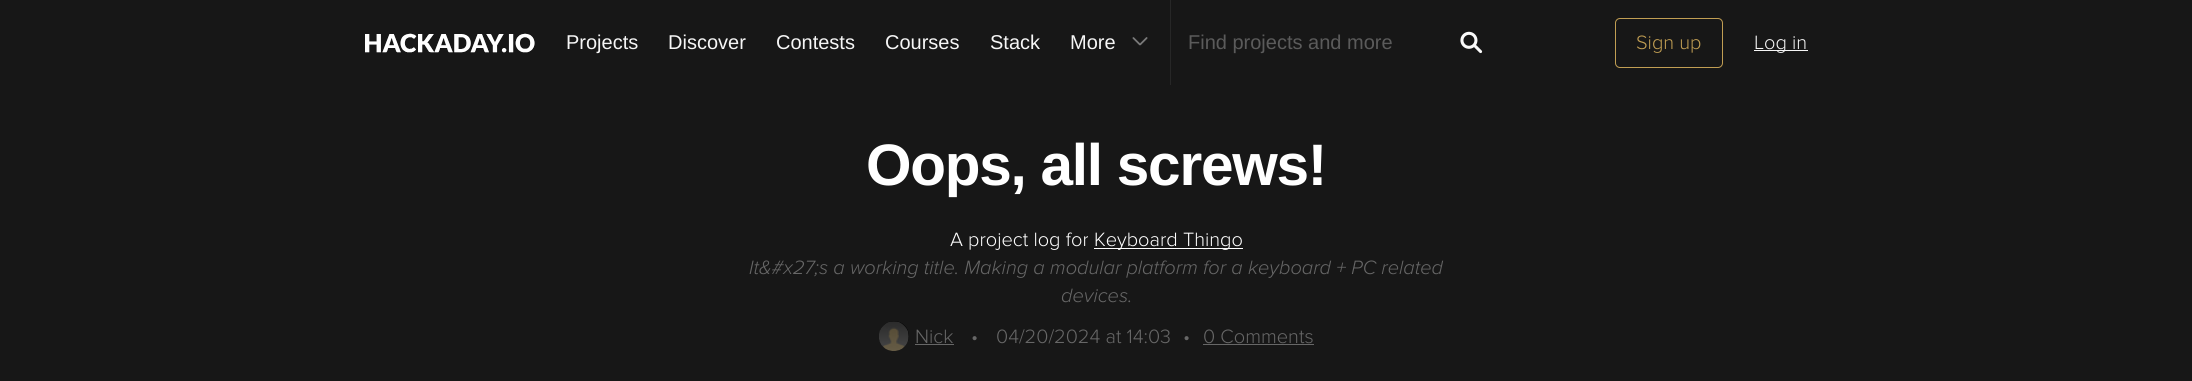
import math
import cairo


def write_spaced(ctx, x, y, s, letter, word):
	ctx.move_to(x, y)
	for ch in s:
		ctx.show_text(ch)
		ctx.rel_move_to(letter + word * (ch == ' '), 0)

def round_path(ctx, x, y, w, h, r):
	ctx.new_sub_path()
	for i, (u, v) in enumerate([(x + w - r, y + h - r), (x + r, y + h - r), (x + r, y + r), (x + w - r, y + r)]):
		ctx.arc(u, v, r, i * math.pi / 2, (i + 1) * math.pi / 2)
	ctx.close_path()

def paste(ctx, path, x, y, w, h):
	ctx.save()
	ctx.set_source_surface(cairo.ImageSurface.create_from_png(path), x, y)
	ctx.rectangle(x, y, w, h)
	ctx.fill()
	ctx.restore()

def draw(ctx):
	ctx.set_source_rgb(0.09, 0.09, 0.09)
	ctx.paint()
	paste(ctx, 'media/1.png', 365, 33, 170, 20)
	ctx.select_font_face('Liberation Sans')
	ctx.set_font_size(20)
	ctx.set_source_rgb(0.961, 0.961, 0.961)
	for x, y, s in [
		(566, 49, 'Projects'),
		(668, 49, 'Discover'),
		(776, 49, 'Contests'),
		(885, 49, 'Courses'),
		(990, 49, 'Stack'),
		(1070, 49, 'More'),
	]:
		ctx.move_to(x, y)
		ctx.show_text(s)
	paste(ctx, 'media/2.png', 1132, 37, 16, 9)
	ctx.set_source_rgb(0.153, 0.153, 0.153)
	ctx.rectangle(1170, 0, 1, 85)
	ctx.fill()
	ctx.set_source_rgb(0.357, 0.357, 0.357)
	ctx.move_to(1188, 49)
	ctx.show_text('Find projects and more')
	paste(ctx, 'media/3.png', 1460, 31, 23, 23)
	round_path(ctx, 1615.5, 18.5, 107, 49, 4.5)
	ctx.set_source_rgb(0.757, 0.62, 0.325)
	ctx.set_line_width(1)
	ctx.stroke()
	ctx.select_font_face('Proxima Nova Light')
	ctx.move_to(1636, 49)
	ctx.show_text('Sign up')
	ctx.set_source_rgb(0.961, 0.961, 0.961)
	ctx.rectangle(1754, 50, 54, 1)
	ctx.fill()
	ctx.move_to(1754, 49)
	ctx.show_text('Log in')
	ctx.select_font_face('Liberation Sans', cairo.FONT_SLANT_NORMAL, cairo.FONT_WEIGHT_BOLD)
	ctx.set_font_size(58.5)
	ctx.set_source_rgb(1, 1, 1)
	write_spaced(ctx, 866, 185, 'Oops, all screws!', -1.25, 0)
	ctx.select_font_face('Proxima Nova Light')
	ctx.set_font_size(20)
	ctx.move_to(950, 246)
	ctx.show_text('A project log for')
	ctx.rectangle(1094, 248, 149, 1)
	ctx.fill()
	ctx.move_to(1094, 246)
	ctx.show_text('Keyboard Thingo')
	ctx.select_font_face('Proxima Nova Light', cairo.FONT_SLANT_ITALIC)
	ctx.set_source_rgb(0.404, 0.404, 0.404)
	ctx.move_to(749, 274)
	ctx.show_text('It&#x27;s a working title. Making a modular platform for a keyboard + PC related')
	ctx.move_to(1061, 302)
	ctx.show_text('devices.')
	ctx.set_source_rgb(0, 0, 0)
	ctx.new_path()
	ctx.arc(894, 336, 15, 0, 2 * math.pi)
	ctx.fill()
	paste(ctx, 'media/4.png', 879, 321, 30, 30)
	ctx.select_font_face('Proxima Nova Light')
	ctx.set_source_rgb(0.404, 0.404, 0.404)
	ctx.move_to(915, 343)
	ctx.show_text('Nick')
	ctx.rectangle(915, 344, 39, 1)
	ctx.fill()
	for x, y, s in [
		(971, 343, '•'),
		(996, 343, '04/20/2024 at 14:03'),
		(1183, 343, '•'),
		(1203, 343, '0 Comments'),
	]:
		ctx.move_to(x, y)
		ctx.show_text(s)
	ctx.rectangle(1203, 344, 111, 1)
	ctx.fill()


surface = cairo.ImageSurface(cairo.FORMAT_RGB24, 2192, 381)
ctx = cairo.Context(surface)
options = cairo.FontOptions()
options.set_hint_metrics(cairo.HINT_METRICS_OFF)
options.set_hint_style(cairo.HINT_STYLE_NONE)
ctx.set_font_options(options)
ctx.set_miter_limit(4)
draw(ctx)
surface.write_to_png('image.png')
